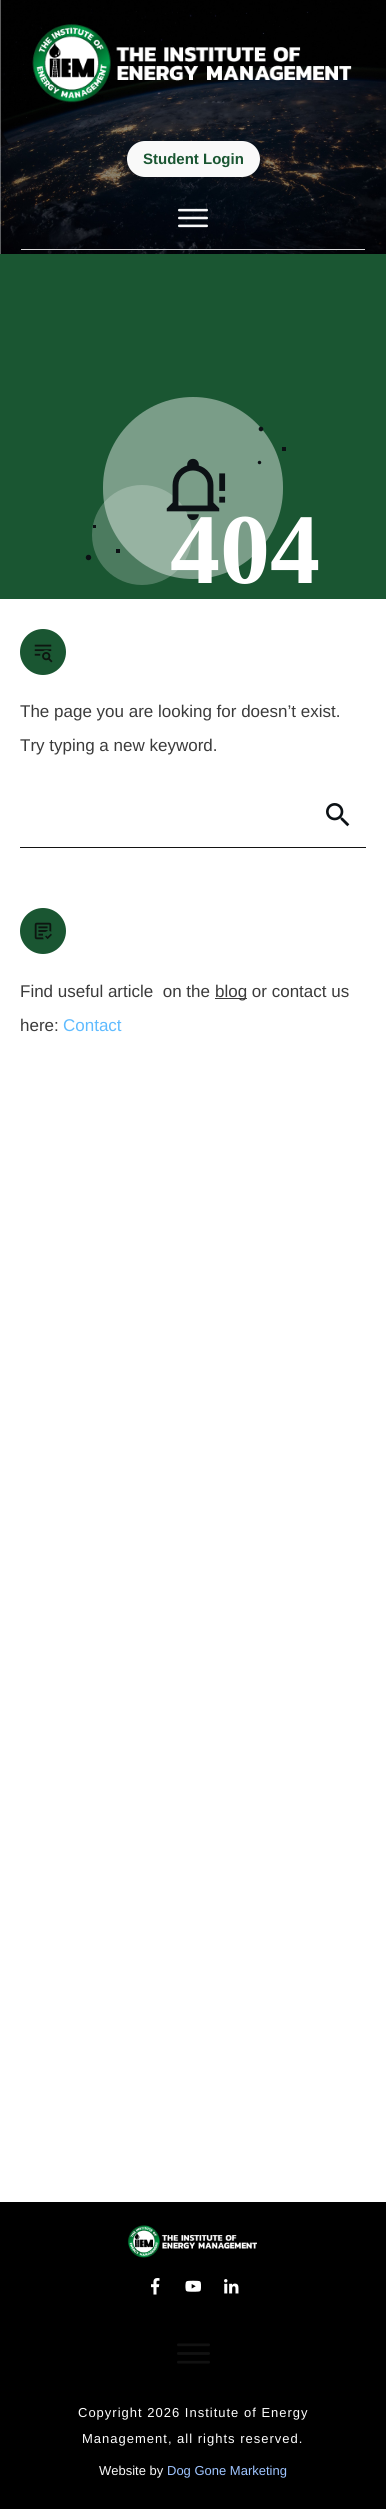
import math
import cairo


def write_spaced(ctx, x, y, s, letter, word):
	ctx.move_to(x, y)
	for ch in s:
		ctx.show_text(ch)
		ctx.rel_move_to(letter + word * (ch == ' '), 0)

def round_path(ctx, x, y, w, h, r):
	ctx.new_sub_path()
	for i, (u, v) in enumerate([(x + w - r, y + h - r), (x + r, y + h - r), (x + r, y + r), (x + w - r, y + r)]):
		ctx.arc(u, v, r, i * math.pi / 2, (i + 1) * math.pi / 2)
	ctx.close_path()

def paste(ctx, path, x, y, w, h):
	ctx.save()
	ctx.set_source_surface(cairo.ImageSurface.create_from_png(path), x, y)
	ctx.rectangle(x, y, w, h)
	ctx.fill()
	ctx.restore()

def draw(ctx):
	ctx.set_source_rgb(1, 1, 1)
	ctx.paint()
	paste(ctx, 'media/1.png', 0, 0, 386, 254)
	paste(ctx, 'media/2.png', 32, 24, 320, 79)
	ctx.set_source_rgb(0.973, 0.973, 0.973)
	round_path(ctx, 127, 141, 133, 36, 18)
	ctx.fill()
	ctx.select_font_face('Liberation Sans', cairo.FONT_SLANT_NORMAL, cairo.FONT_WEIGHT_BOLD)
	ctx.set_font_size(15)
	ctx.set_source_rgb(0.102, 0.337, 0.196)
	ctx.move_to(143, 164)
	ctx.show_text('Student Login')
	paste(ctx, 'media/3.png', 178, 208, 30, 20)
	ctx.set_source_rgb(0.855, 0.855, 0.855)
	ctx.rectangle(21, 249, 344, 1)
	ctx.fill()
	ctx.set_source_rgb(0.102, 0.337, 0.196)
	ctx.rectangle(0, 254, 386, 345)
	ctx.fill()
	ctx.select_font_face('Liberation Serif', cairo.FONT_SLANT_NORMAL, cairo.FONT_WEIGHT_BOLD)
	ctx.set_font_size(100)
	ctx.set_source_rgb(1, 1, 1)
	ctx.move_to(170, 583)
	ctx.show_text('404')
	ctx.set_source_rgba(1, 1, 1, 0.42)
	round_path(ctx, 103, 397, 180, 182, 90)
	ctx.fill()
	paste(ctx, 'media/4.png', 258, 426, 6, 6)
	ctx.set_source_rgb(0.047, 0.067, 0.082)
	ctx.rectangle(282, 447, 4, 4)
	ctx.fill()
	paste(ctx, 'media/5.png', 257, 460, 5, 5)
	ctx.set_source_rgba(1, 1, 1, 0.22)
	ctx.arc(142, 535, 50, 0, 2 * math.pi)
	ctx.fill()
	paste(ctx, 'media/6.png', 166, 458, 60, 63)
	ctx.set_source_rgb(0.047, 0.067, 0.082)
	ctx.rectangle(93, 525, 3, 3)
	ctx.fill()
	ctx.rectangle(116, 549, 4, 4)
	ctx.fill()
	paste(ctx, 'media/7.png', 85, 554, 7, 7)
	ctx.set_source_rgb(0.102, 0.337, 0.196)
	ctx.arc(43, 652, 23, 0, 2 * math.pi)
	ctx.fill()
	paste(ctx, 'media/8.png', 34, 644, 19, 19)
	ctx.select_font_face('Liberation Sans')
	ctx.set_font_size(17)
	ctx.set_source_rgb(0.231, 0.231, 0.231)
	ctx.move_to(20, 717)
	ctx.show_text('The page you are looking for doesn’t exist.')
	ctx.move_to(20, 751)
	ctx.show_text('Try typing a new keyword.')
	ctx.set_source_rgb(0.078, 0.078, 0.078)
	ctx.rectangle(20, 847, 346, 1)
	ctx.fill()
	paste(ctx, 'media/9.png', 326, 803, 24, 24)
	ctx.set_source_rgb(0.102, 0.337, 0.196)
	ctx.arc(43, 931, 23, 0, 2 * math.pi)
	ctx.fill()
	paste(ctx, 'media/10.png', 34, 922, 18, 18)
	ctx.set_source_rgb(0.231, 0.231, 0.231)
	ctx.move_to(20, 997)
	ctx.show_text('Find useful article  on the')
	ctx.rectangle(215, 998, 32, 1)
	ctx.fill()
	ctx.move_to(215, 997)
	ctx.show_text('blog or contact us')
	ctx.move_to(20, 1031)
	ctx.show_text('here:')
	ctx.set_source_rgb(0.373, 0.733, 1)
	ctx.move_to(63, 1031)
	ctx.show_text('Contact')
	ctx.set_source_rgb(0, 0, 0)
	ctx.rectangle(0, 2202, 386, 307)
	ctx.fill()
	paste(ctx, 'media/11.png', 127, 2225, 130, 33)
	paste(ctx, 'media/12.png', 151, 2278, 9, 17)
	paste(ctx, 'media/13.png', 185, 2280, 16, 12)
	paste(ctx, 'media/14.png', 224, 2279, 15, 15)
	paste(ctx, 'media/15.png', 177, 2343, 33, 21)
	ctx.set_font_size(13)
	ctx.set_source_rgb(1, 1, 1)
	write_spaced(ctx, 78, 2417, 'Copyright 2026 Institute of Energy', 1, 0)
	write_spaced(ctx, 82, 2443, 'Management, all rights reserved.', 1, 0)
	ctx.set_source_rgb(0.973, 0.973, 0.973)
	ctx.move_to(99, 2475)
	ctx.show_text('Website by')
	ctx.set_source_rgb(0.62, 0.769, 1)
	ctx.move_to(167, 2475)
	ctx.show_text('Dog Gone Marketing')


surface = cairo.ImageSurface(cairo.FORMAT_RGB24, 386, 2509)
ctx = cairo.Context(surface)
options = cairo.FontOptions()
options.set_hint_metrics(cairo.HINT_METRICS_OFF)
options.set_hint_style(cairo.HINT_STYLE_NONE)
ctx.set_font_options(options)
ctx.set_miter_limit(4)
draw(ctx)
surface.write_to_png('image.png')
